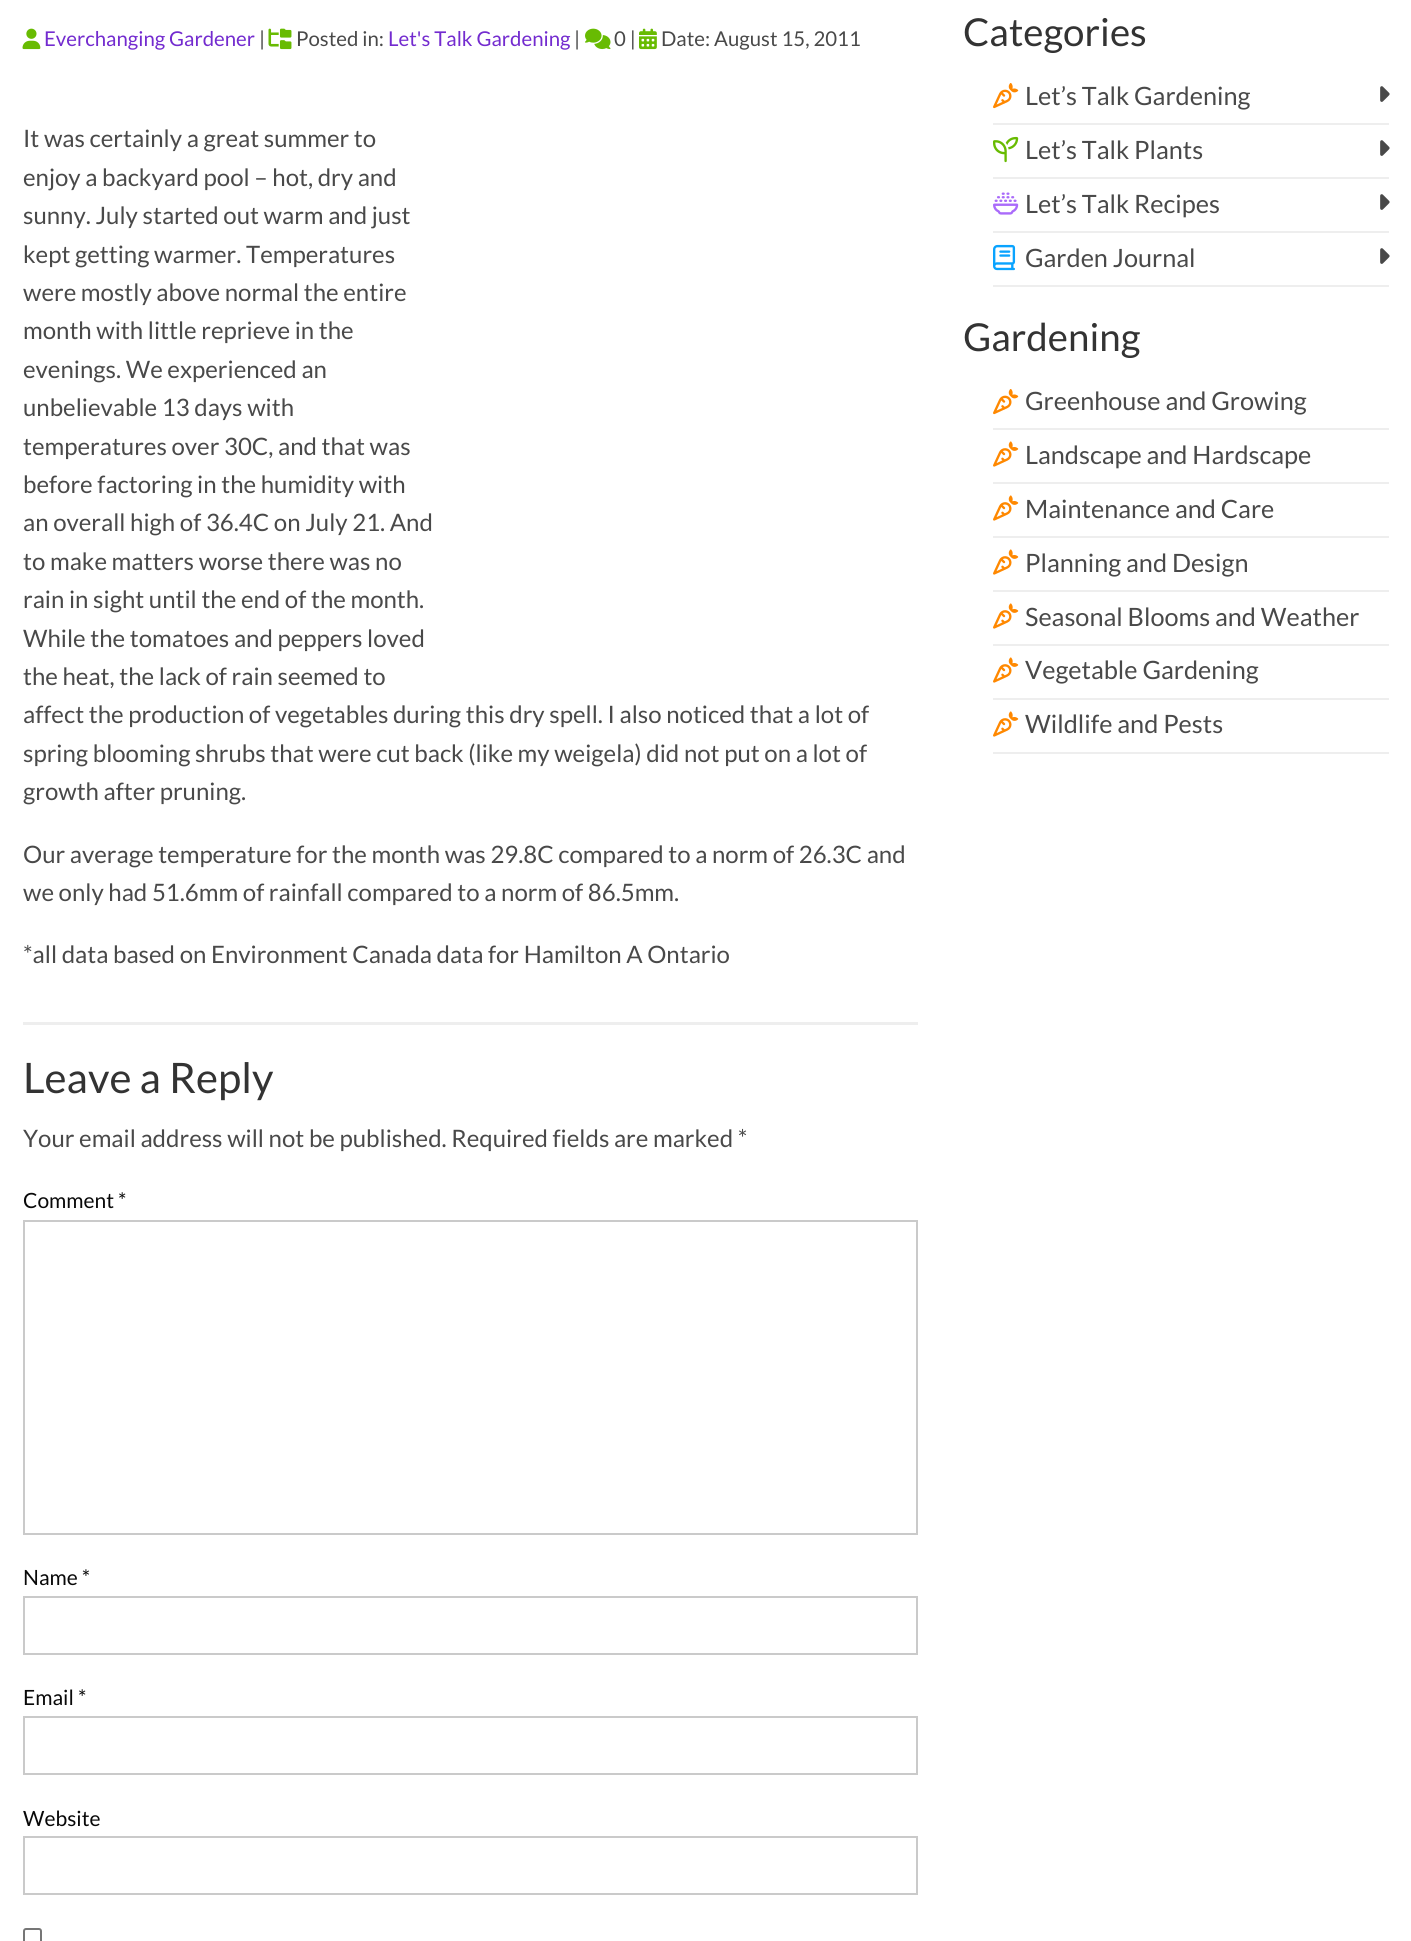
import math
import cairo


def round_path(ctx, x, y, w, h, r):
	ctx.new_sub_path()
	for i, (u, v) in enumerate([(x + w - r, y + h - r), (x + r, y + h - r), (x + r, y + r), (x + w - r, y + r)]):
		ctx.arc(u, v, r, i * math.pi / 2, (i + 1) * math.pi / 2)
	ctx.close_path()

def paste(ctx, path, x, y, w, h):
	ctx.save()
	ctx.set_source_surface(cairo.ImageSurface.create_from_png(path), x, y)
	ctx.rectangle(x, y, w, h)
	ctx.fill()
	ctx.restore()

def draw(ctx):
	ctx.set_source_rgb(1, 1, 1)
	ctx.paint()
	paste(ctx, 'media/1.png', 22, 28, 19, 22)
	ctx.select_font_face('Lato')
	ctx.set_font_size(20.4)
	ctx.set_source_rgb(0.451, 0.169, 0.812)
	ctx.move_to(44, 46)
	ctx.show_text('Everchanging Gardener')
	ctx.set_source_rgb(0.286, 0.286, 0.286)
	ctx.move_to(259, 46)
	ctx.show_text('|')
	paste(ctx, 'media/2.png', 268, 28, 24, 22)
	ctx.move_to(296, 46)
	ctx.show_text('Posted in:')
	ctx.set_source_rgb(0.451, 0.169, 0.812)
	ctx.move_to(388, 46)
	ctx.show_text('Let\'s Talk Gardening')
	ctx.set_source_rgb(0.286, 0.286, 0.286)
	ctx.move_to(574, 46)
	ctx.show_text('|')
	paste(ctx, 'media/3.png', 585, 28, 26, 22)
	ctx.move_to(614, 46)
	ctx.show_text('0 |')
	paste(ctx, 'media/4.png', 639, 28, 18, 22)
	ctx.move_to(661, 46)
	ctx.show_text('Date: August 15, 2011')
	ctx.set_font_size(24)
	for x, y, s in [
		(23, 147, 'It was certainly a great summer to'),
		(23, 186, 'enjoy a backyard pool – hot, dry and'),
		(23, 224, 'sunny. July started out warm and just'),
		(23, 263, 'kept getting warmer. Temperatures'),
		(23, 301, 'were mostly above normal the entire'),
		(23, 339, 'month with little reprieve in the'),
		(23, 378, 'evenings. We experienced an'),
		(23, 416, 'unbelievable 13 days with'),
		(23, 455, 'temperatures over 30C, and that was'),
		(23, 493, 'before factoring in the humidity with'),
		(23, 531, 'an overall high of 36.4C on July 21. And'),
		(23, 570, 'to make matters worse there was no'),
		(23, 608, 'rain in sight until the end of the month.'),
		(23, 647, 'While the tomatoes and peppers loved'),
		(23, 685, 'the heat, the lack of rain seemed to'),
		(23, 723, 'affect the production of vegetables during this dry spell. I also noticed that a lot of'),
		(23, 762, 'spring blooming shrubs that were cut back (like my weigela) did not put on a lot of'),
		(23, 800, 'growth after pruning.'),
		(23, 863, 'Our average temperature for the month was 29.8C compared to a norm of 26.3C and'),
		(23, 901, 'we only had 51.6mm of rainfall compared to a norm of 86.5mm.'),
		(23, 963, '*all data based on Environment Canada data for Hamilton A Ontario'),
	]:
		ctx.move_to(x, y)
		ctx.show_text(s)
	ctx.set_source_rgb(0.933, 0.933, 0.933)
	ctx.rectangle(23, 1022, 895, 3)
	ctx.fill()
	ctx.set_font_size(42)
	ctx.set_source_rgb(0.2, 0.2, 0.2)
	ctx.move_to(23, 1093)
	ctx.show_text('Leave a Reply')
	ctx.set_font_size(24)
	ctx.set_source_rgb(0.286, 0.286, 0.286)
	ctx.move_to(23, 1147)
	ctx.show_text('Your email address will not be published. Required fields are marked *')
	ctx.set_font_size(21)
	ctx.set_source_rgb(0.039, 0.039, 0.039)
	ctx.move_to(23, 1208)
	ctx.show_text('Comment *')
	ctx.rectangle(24, 1221, 893, 313)
	ctx.set_source_rgb(0.792, 0.792, 0.792)
	ctx.stroke()
	ctx.set_source_rgb(0.039, 0.039, 0.039)
	ctx.move_to(23, 1585)
	ctx.show_text('Name *')
	ctx.rectangle(24, 1597, 893, 57)
	ctx.set_source_rgb(0.792, 0.792, 0.792)
	ctx.stroke()
	ctx.set_source_rgb(0.039, 0.039, 0.039)
	ctx.move_to(23, 1705)
	ctx.show_text('Email *')
	ctx.rectangle(24, 1717, 893, 57)
	ctx.set_source_rgb(0.792, 0.792, 0.792)
	ctx.stroke()
	ctx.set_source_rgb(0.039, 0.039, 0.039)
	ctx.move_to(23, 1826)
	ctx.show_text('Website')
	ctx.rectangle(24, 1837, 893, 57)
	ctx.set_source_rgb(0.792, 0.792, 0.792)
	ctx.stroke()
	round_path(ctx, 24, 1929, 17, 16, 2)
	ctx.set_source_rgb(0.463, 0.463, 0.463)
	ctx.stroke()
	ctx.set_font_size(38.5)
	ctx.set_source_rgb(0.2, 0.2, 0.2)
	ctx.move_to(963, 46)
	ctx.show_text('Categories')
	ctx.set_source_rgb(0.933, 0.933, 0.933)
	ctx.rectangle(993, 123, 396, 2)
	ctx.fill()
	paste(ctx, 'media/5.png', 993, 83, 26, 26)
	ctx.set_font_size(25.25)
	ctx.set_source_rgb(0.286, 0.286, 0.286)
	ctx.move_to(1025, 105)
	ctx.show_text('Let’s Talk Gardening')
	paste(ctx, 'media/6.png', 1380, 86, 10, 16)
	ctx.set_source_rgb(0.933, 0.933, 0.933)
	ctx.rectangle(993, 177, 396, 2)
	ctx.fill()
	paste(ctx, 'media/7.png', 993, 136, 26, 27)
	ctx.set_source_rgb(0.286, 0.286, 0.286)
	ctx.move_to(1025, 159)
	ctx.show_text('Let’s Talk Plants')
	paste(ctx, 'media/6.png', 1380, 140, 10, 16)
	ctx.set_source_rgb(0.933, 0.933, 0.933)
	ctx.rectangle(993, 231, 396, 2)
	ctx.fill()
	paste(ctx, 'media/8.png', 993, 192, 26, 23)
	ctx.set_source_rgb(0.286, 0.286, 0.286)
	ctx.move_to(1025, 213)
	ctx.show_text('Let’s Talk Recipes')
	paste(ctx, 'media/6.png', 1380, 194, 10, 16)
	ctx.set_source_rgb(0.933, 0.933, 0.933)
	ctx.rectangle(993, 285, 396, 2)
	ctx.fill()
	paste(ctx, 'media/9.png', 993, 244, 23, 27)
	ctx.set_source_rgb(0.286, 0.286, 0.286)
	ctx.move_to(1025, 267)
	ctx.show_text('Garden Journal')
	paste(ctx, 'media/6.png', 1380, 248, 10, 16)
	ctx.set_font_size(38.5)
	ctx.set_source_rgb(0.2, 0.2, 0.2)
	ctx.move_to(963, 351)
	ctx.show_text('Gardening')
	ctx.set_source_rgb(0.933, 0.933, 0.933)
	ctx.rectangle(993, 428, 396, 2)
	ctx.fill()
	paste(ctx, 'media/5.png', 993, 389, 26, 26)
	ctx.set_font_size(25.25)
	ctx.set_source_rgb(0.286, 0.286, 0.286)
	ctx.move_to(1025, 410)
	ctx.show_text('Greenhouse and Growing')
	ctx.set_source_rgb(0.933, 0.933, 0.933)
	ctx.rectangle(993, 482, 396, 2)
	ctx.fill()
	paste(ctx, 'media/10.png', 993, 441, 26, 26)
	ctx.set_source_rgb(0.286, 0.286, 0.286)
	ctx.move_to(1025, 464)
	ctx.show_text('Landscape and Hardscape')
	ctx.set_source_rgb(0.933, 0.933, 0.933)
	ctx.rectangle(993, 536, 396, 2)
	ctx.fill()
	paste(ctx, 'media/10.png', 993, 495, 26, 26)
	ctx.set_source_rgb(0.286, 0.286, 0.286)
	ctx.move_to(1025, 518)
	ctx.show_text('Maintenance and Care')
	ctx.set_source_rgb(0.933, 0.933, 0.933)
	ctx.rectangle(993, 590, 396, 2)
	ctx.fill()
	paste(ctx, 'media/10.png', 993, 549, 26, 26)
	ctx.set_source_rgb(0.286, 0.286, 0.286)
	ctx.move_to(1025, 572)
	ctx.show_text('Planning and Design')
	ctx.set_source_rgb(0.933, 0.933, 0.933)
	ctx.rectangle(993, 644, 396, 2)
	ctx.fill()
	paste(ctx, 'media/10.png', 993, 603, 26, 26)
	ctx.set_source_rgb(0.286, 0.286, 0.286)
	ctx.move_to(1025, 626)
	ctx.show_text('Seasonal Blooms and Weather')
	ctx.set_source_rgb(0.933, 0.933, 0.933)
	ctx.rectangle(993, 698, 396, 2)
	ctx.fill()
	paste(ctx, 'media/10.png', 993, 657, 26, 26)
	ctx.set_source_rgb(0.286, 0.286, 0.286)
	ctx.move_to(1025, 679)
	ctx.show_text('Vegetable Gardening')
	ctx.set_source_rgb(0.933, 0.933, 0.933)
	ctx.rectangle(993, 752, 396, 2)
	ctx.fill()
	paste(ctx, 'media/10.png', 993, 711, 26, 26)
	ctx.set_source_rgb(0.286, 0.286, 0.286)
	ctx.move_to(1025, 733)
	ctx.show_text('Wildlife and Pests')


surface = cairo.ImageSurface(cairo.FORMAT_RGB24, 1411, 1941)
ctx = cairo.Context(surface)
options = cairo.FontOptions()
options.set_hint_metrics(cairo.HINT_METRICS_OFF)
options.set_hint_style(cairo.HINT_STYLE_NONE)
ctx.set_font_options(options)
ctx.set_miter_limit(4)
draw(ctx)
surface.write_to_png('image.png')
